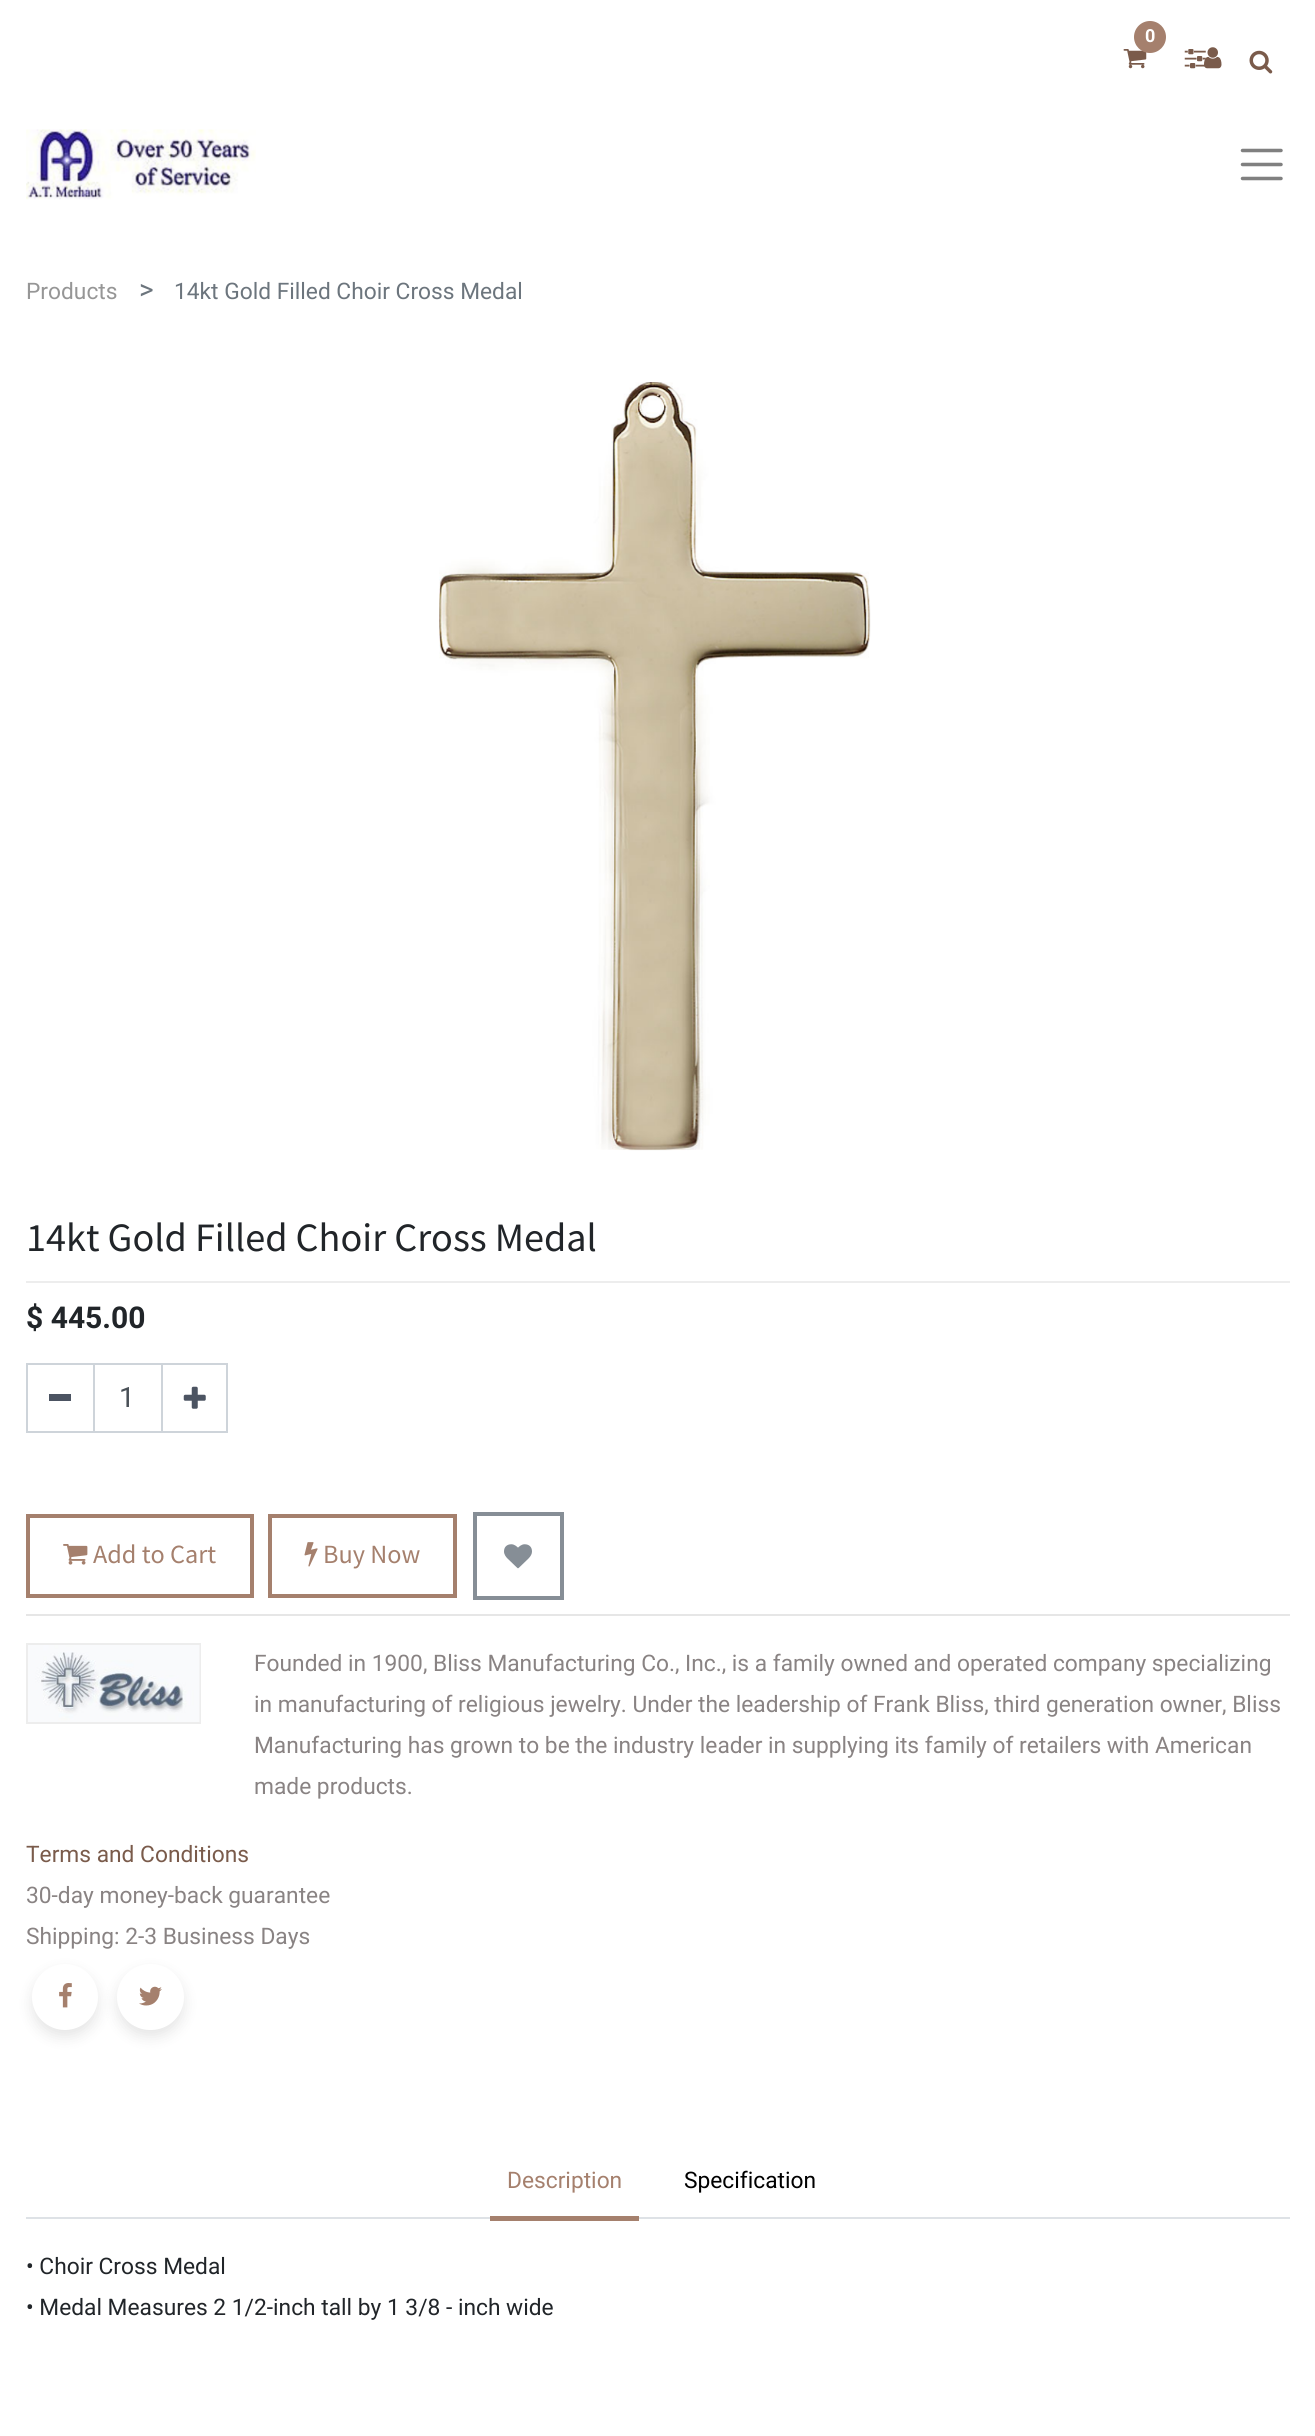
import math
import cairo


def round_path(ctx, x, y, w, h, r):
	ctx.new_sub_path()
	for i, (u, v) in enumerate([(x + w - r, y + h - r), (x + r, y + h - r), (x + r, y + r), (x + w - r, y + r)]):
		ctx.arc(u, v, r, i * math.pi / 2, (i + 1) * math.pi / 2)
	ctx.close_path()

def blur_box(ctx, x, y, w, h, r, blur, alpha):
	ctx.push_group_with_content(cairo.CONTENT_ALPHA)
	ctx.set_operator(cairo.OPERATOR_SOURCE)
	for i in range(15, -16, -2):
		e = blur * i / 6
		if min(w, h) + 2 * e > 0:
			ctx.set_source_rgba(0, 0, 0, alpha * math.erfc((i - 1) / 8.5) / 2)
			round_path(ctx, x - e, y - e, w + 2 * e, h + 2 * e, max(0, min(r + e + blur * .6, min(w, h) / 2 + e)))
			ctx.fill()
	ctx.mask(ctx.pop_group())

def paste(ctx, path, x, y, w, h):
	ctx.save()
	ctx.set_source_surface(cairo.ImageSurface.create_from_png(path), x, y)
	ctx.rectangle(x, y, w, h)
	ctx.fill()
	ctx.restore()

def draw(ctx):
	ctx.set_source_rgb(1, 1, 1)
	ctx.paint()
	paste(ctx, 'media/1.png', 1123, 49, 24, 20)
	ctx.set_source_rgb(0.647, 0.502, 0.427)
	ctx.arc(1150, 37, 16, 0, 2 * math.pi)
	ctx.fill()
	ctx.select_font_face('Roboto', cairo.FONT_SLANT_NORMAL, cairo.FONT_WEIGHT_BOLD)
	ctx.set_font_size(18)
	ctx.set_source_rgb(1, 1, 1)
	ctx.move_to(1145, 42)
	ctx.show_text('0')
	paste(ctx, 'media/2.png', 1184, 49, 22, 20)
	paste(ctx, 'media/3.png', 1204, 47, 18, 22)
	paste(ctx, 'media/4.png', 1249, 50, 24, 24)
	paste(ctx, 'media/5.png', 26, 129, 230, 71)
	ctx.new_path()
	ctx.move_to(1242.5, 150.5)
	ctx.line_to(1281, 150.5)
	ctx.move_to(1242.5, 164.5)
	ctx.line_to(1281, 164.5)
	ctx.move_to(1242.5, 178.5)
	ctx.line_to(1281, 178.5)
	ctx.set_source_rgb(0.502, 0.502, 0.502)
	ctx.set_line_width(3.5)
	ctx.set_line_cap(cairo.LINE_CAP_ROUND)
	ctx.stroke()
	ctx.select_font_face('Roboto')
	ctx.set_font_size(22.75)
	ctx.set_source_rgb(0.588, 0.588, 0.588)
	ctx.move_to(26, 299)
	ctx.show_text('Products')
	ctx.set_font_size(28)
	ctx.set_source_rgb(0.424, 0.459, 0.49)
	ctx.move_to(139, 299)
	ctx.show_text('>')
	ctx.set_font_size(22.75)
	ctx.move_to(174, 299)
	ctx.show_text('14kt Gold Filled Choir Cross Medal')
	paste(ctx, 'media/6.png', 439, 382, 432, 769)
	ctx.select_font_face('Source Sans Pro')
	ctx.set_font_size(40.25)
	ctx.set_source_rgb(0.129, 0.145, 0.161)
	ctx.move_to(26, 1251)
	ctx.show_text('14kt Gold Filled Choir Cross Medal')
	ctx.set_source_rgb(0.929, 0.929, 0.929)
	ctx.rectangle(26, 1281, 1264, 2)
	ctx.fill()
	ctx.select_font_face('Roboto', cairo.FONT_SLANT_NORMAL, cairo.FONT_WEIGHT_BOLD)
	ctx.set_font_size(30)
	ctx.set_source_rgb(0.129, 0.145, 0.161)
	ctx.move_to(26, 1328)
	ctx.show_text('$ 445.00')
	ctx.rectangle(27, 1364, 67, 68)
	ctx.set_source_rgb(0.808, 0.831, 0.855)
	ctx.set_line_width(2)
	ctx.set_line_cap(cairo.LINE_CAP_BUTT)
	ctx.stroke()
	ctx.set_source_rgb(0.298, 0.329, 0.384)
	ctx.rectangle(49, 1394, 22, 7)
	ctx.fill()
	ctx.rectangle(94, 1364, 68, 68)
	ctx.set_source_rgb(0.808, 0.831, 0.855)
	ctx.stroke()
	ctx.select_font_face('Roboto')
	ctx.set_font_size(28)
	ctx.set_source_rgb(0.286, 0.314, 0.341)
	ctx.move_to(119, 1407)
	ctx.show_text('1')
	ctx.rectangle(162, 1364, 65, 68)
	ctx.set_source_rgb(0.808, 0.831, 0.855)
	ctx.stroke()
	paste(ctx, 'media/7.png', 183, 1386, 23, 23)
	ctx.rectangle(28, 1516, 224, 80)
	ctx.set_source_rgb(0.647, 0.502, 0.427)
	ctx.set_line_width(4)
	ctx.stroke()
	paste(ctx, 'media/8.png', 63, 1544, 25, 21)
	ctx.select_font_face('Source Sans Pro')
	ctx.set_font_size(26.25)
	ctx.move_to(93, 1563)
	ctx.show_text('Add to Cart')
	ctx.rectangle(270, 1516, 185, 80)
	ctx.stroke()
	paste(ctx, 'media/9.png', 304, 1542, 14, 25)
	ctx.move_to(323, 1563)
	ctx.show_text('Buy Now')
	ctx.rectangle(475, 1514, 87, 84)
	ctx.set_source_rgb(0.525, 0.557, 0.588)
	ctx.stroke()
	paste(ctx, 'media/10.png', 504, 1544, 28, 25)
	ctx.set_source_rgb(0.902, 0.902, 0.902)
	ctx.rectangle(26, 1614, 1264, 2)
	ctx.fill()
	ctx.rectangle(27, 1644, 173, 79)
	ctx.set_source_rgb(0.929, 0.929, 0.929)
	ctx.set_line_width(2)
	ctx.stroke()
	paste(ctx, 'media/11.png', 28, 1645, 172, 77)
	ctx.select_font_face('Roboto')
	ctx.set_font_size(22.75)
	ctx.set_source_rgb(0.537, 0.514, 0.514)
	for x, y, s in [
		(254, 1671, 'Founded in 1900, Bliss Manufacturing Co., Inc., is a family owned and operated company specializing'),
		(254, 1712, 'in manufacturing of religious jewelry. Under the leadership of Frank Bliss, third generation owner, Bliss'),
		(254, 1753, 'Manufacturing has grown to be the industry leader in supplying its family of retailers with American'),
		(254, 1794, 'made products.'),
	]:
		ctx.move_to(x, y)
		ctx.show_text(s)
	ctx.set_source_rgb(0.478, 0.357, 0.294)
	ctx.move_to(26, 1862)
	ctx.show_text('Terms and Conditions')
	ctx.set_source_rgb(0.537, 0.514, 0.514)
	ctx.move_to(26, 1903)
	ctx.show_text('30-day money-back guarantee')
	ctx.move_to(26, 1944)
	ctx.show_text('Shipping: 2-3 Business Days')
	ctx.set_source_rgb(0, 0, 0)
	blur_box(ctx, 32, 1971, 66, 66, 33, 7, 0.1)
	ctx.set_source_rgb(1, 1, 1)
	ctx.arc(65, 1997, 33, 0, 2 * math.pi)
	ctx.fill()
	paste(ctx, 'media/12.png', 59, 1983, 13, 25)
	ctx.set_source_rgb(0, 0, 0)
	blur_box(ctx, 117, 1971, 67, 66, 33, 7, 0.1)
	ctx.set_source_rgb(1, 1, 1)
	round_path(ctx, 117, 1964, 67, 66, 33)
	ctx.fill()
	paste(ctx, 'media/13.png', 139, 1986, 23, 20)
	ctx.set_source_rgb(0.871, 0.886, 0.902)
	ctx.rectangle(26, 2217, 1264, 2)
	ctx.fill()
	ctx.set_source_rgb(0.647, 0.502, 0.427)
	ctx.rectangle(490, 2216, 149, 5)
	ctx.fill()
	ctx.move_to(507, 2188)
	ctx.show_text('Description')
	ctx.set_source_rgb(0, 0, 0)
	ctx.move_to(684, 2188)
	ctx.show_text('Specification')
	ctx.set_source_rgb(0.129, 0.145, 0.161)
	ctx.move_to(26, 2274)
	ctx.show_text('• Choir Cross Medal')
	ctx.move_to(26, 2315)
	ctx.show_text('• Medal Measures 2 1/2-inch tall by 1 3/8 - inch wide')


surface = cairo.ImageSurface(cairo.FORMAT_RGB24, 1315, 2436)
ctx = cairo.Context(surface)
options = cairo.FontOptions()
options.set_hint_metrics(cairo.HINT_METRICS_OFF)
options.set_hint_style(cairo.HINT_STYLE_NONE)
ctx.set_font_options(options)
ctx.set_miter_limit(4)
draw(ctx)
surface.write_to_png('image.png')
